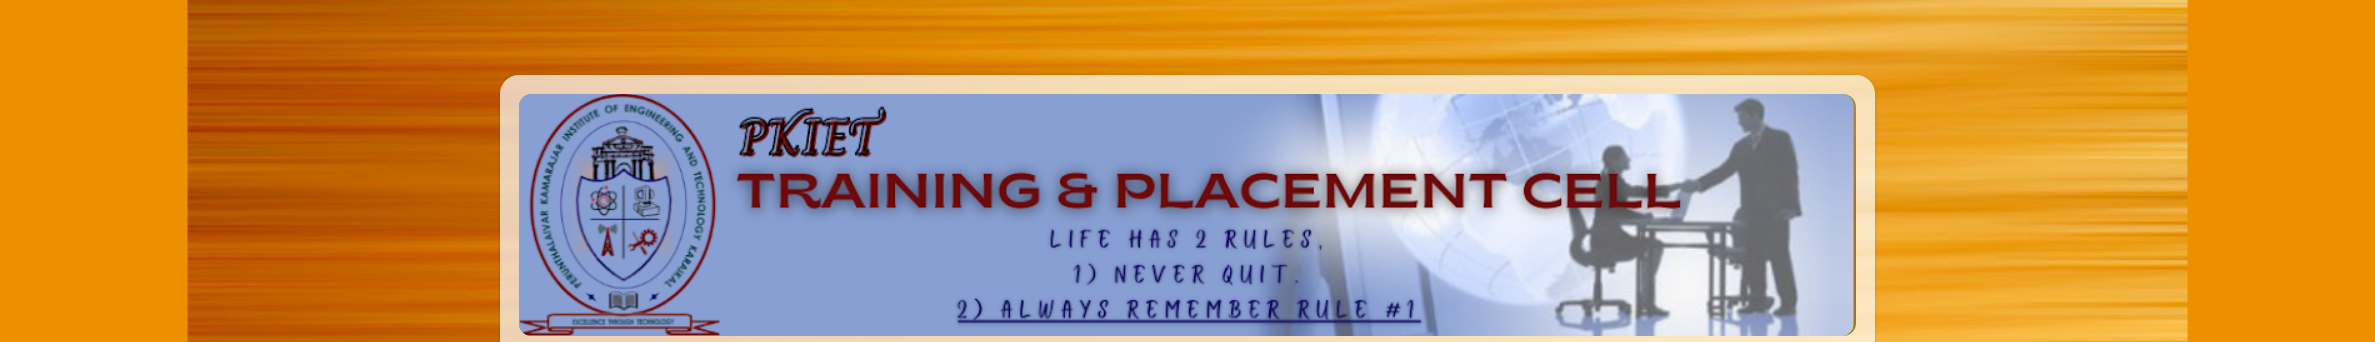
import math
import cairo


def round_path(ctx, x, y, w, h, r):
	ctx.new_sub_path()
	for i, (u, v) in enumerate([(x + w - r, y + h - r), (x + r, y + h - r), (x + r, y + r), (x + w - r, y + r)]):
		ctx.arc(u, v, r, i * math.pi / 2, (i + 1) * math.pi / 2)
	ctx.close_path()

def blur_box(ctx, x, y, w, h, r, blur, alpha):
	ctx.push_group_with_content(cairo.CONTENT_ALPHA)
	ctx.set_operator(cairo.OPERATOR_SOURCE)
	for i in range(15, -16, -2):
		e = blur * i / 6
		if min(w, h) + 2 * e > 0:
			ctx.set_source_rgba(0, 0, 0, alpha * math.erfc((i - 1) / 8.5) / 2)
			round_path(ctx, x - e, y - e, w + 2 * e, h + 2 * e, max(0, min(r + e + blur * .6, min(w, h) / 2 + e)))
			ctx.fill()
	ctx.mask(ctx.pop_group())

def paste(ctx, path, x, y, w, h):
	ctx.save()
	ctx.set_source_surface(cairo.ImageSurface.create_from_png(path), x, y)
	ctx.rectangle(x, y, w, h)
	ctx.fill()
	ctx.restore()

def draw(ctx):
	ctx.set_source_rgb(0.922, 0.561, 0)
	ctx.paint()
	paste(ctx, 'media/1.png', 187, 0, 2001, 342)
	ctx.save()
	ctx.set_fill_rule(cairo.FILL_RULE_EVEN_ODD)
	ctx.new_path()
	ctx.move_to(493, 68)
	ctx.line_to(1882, 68)
	ctx.line_to(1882, 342)
	ctx.line_to(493, 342)
	ctx.close_path()
	ctx.move_to(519, 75)
	ctx.line_to(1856, 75)
	ctx.curve_to(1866.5, 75, 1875, 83.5, 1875, 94)
	ctx.line_to(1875, 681)
	ctx.curve_to(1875, 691.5, 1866.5, 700, 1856, 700)
	ctx.line_to(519, 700)
	ctx.curve_to(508.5, 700, 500, 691.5, 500, 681)
	ctx.line_to(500, 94)
	ctx.curve_to(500, 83.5, 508.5, 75, 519, 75)
	ctx.close_path()
	ctx.clip()
	ctx.set_source_rgb(0, 0, 0)
	blur_box(ctx, 500, 75, 1375, 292, 19, 2, 0.15)
	ctx.restore()
	paste(ctx, 'media/2.png', 500, 75, 1375, 267)
	ctx.set_source_rgb(0.678, 0.443, 0.075)
	round_path(ctx, 519, 94, 1337, 242, 13)
	ctx.fill()
	paste(ctx, 'media/3.png', 519, 94, 1337, 105)
	paste(ctx, 'media/4.png', 519, 94, 1335, 242)


surface = cairo.ImageSurface(cairo.FORMAT_RGB24, 2375, 342)
ctx = cairo.Context(surface)
options = cairo.FontOptions()
options.set_hint_metrics(cairo.HINT_METRICS_OFF)
options.set_hint_style(cairo.HINT_STYLE_NONE)
ctx.set_font_options(options)
ctx.set_miter_limit(4)
draw(ctx)
surface.write_to_png('image.png')
